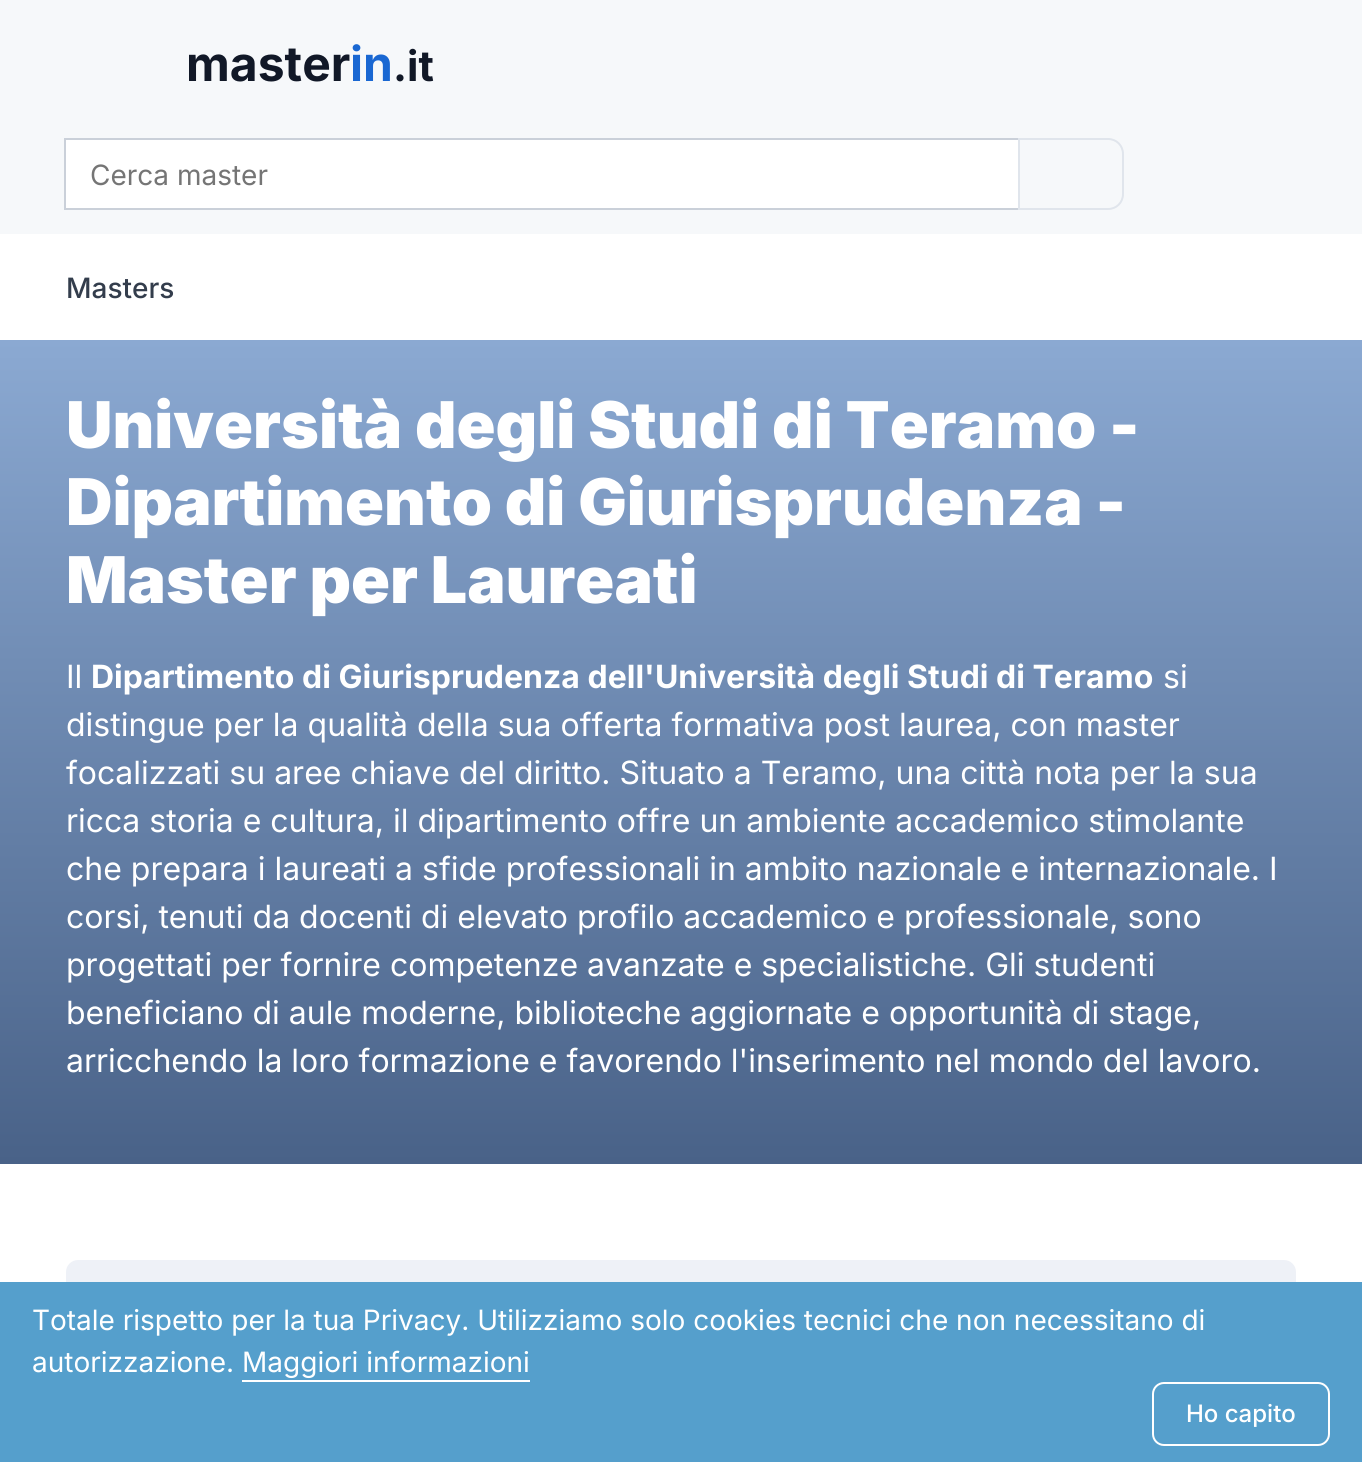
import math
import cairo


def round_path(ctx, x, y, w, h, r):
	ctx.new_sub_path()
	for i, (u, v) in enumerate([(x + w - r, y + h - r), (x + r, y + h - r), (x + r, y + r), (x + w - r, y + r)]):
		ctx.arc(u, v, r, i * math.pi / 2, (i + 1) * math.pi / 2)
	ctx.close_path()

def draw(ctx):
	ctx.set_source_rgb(1, 1, 1)
	ctx.paint()
	ctx.set_source_rgb(0.961, 0.969, 0.98)
	ctx.rectangle(0, 0, 1362, 234)
	ctx.fill()
	ctx.select_font_face('Inter', cairo.FONT_SLANT_NORMAL, cairo.FONT_WEIGHT_BOLD)
	ctx.set_font_size(48)
	ctx.set_source_rgb(0.067, 0.094, 0.153)
	ctx.move_to(186, 81)
	ctx.show_text('master')
	ctx.set_source_rgb(0.098, 0.404, 0.824)
	ctx.move_to(350, 81)
	ctx.show_text('in')
	ctx.set_font_size(42)
	ctx.set_source_rgb(0.067, 0.094, 0.153)
	ctx.move_to(393, 81)
	ctx.show_text('.it')
	ctx.set_source_rgb(1, 1, 1)
	ctx.rectangle(65, 139, 954, 70)
	ctx.fill_preserve()
	ctx.set_source_rgb(0.792, 0.816, 0.851)
	ctx.stroke()
	ctx.select_font_face('Inter')
	ctx.set_font_size(28)
	ctx.set_source_rgb(0.459, 0.459, 0.459)
	ctx.move_to(90, 185)
	ctx.show_text('Cerca master')
	ctx.new_path()
	ctx.move_to(1019, 139)
	ctx.line_to(1108, 139)
	ctx.curve_to(1116.5, 139, 1123, 145.5, 1123, 154)
	ctx.line_to(1123, 194)
	ctx.curve_to(1123, 202.5, 1116.5, 209, 1108, 209)
	ctx.line_to(1019, 209)
	ctx.close_path()
	ctx.set_source_rgb(0.878, 0.898, 0.922)
	ctx.stroke()
	ctx.select_font_face('Inter Medium')
	ctx.set_source_rgb(0.2, 0.239, 0.298)
	ctx.move_to(66, 298)
	ctx.show_text('Masters')
	gradient = cairo.LinearGradient(681, 340, 681, 1164)
	gradient.add_color_stop_rgba(0, 0.545, 0.663, 0.824, 1)
	gradient.add_color_stop_rgba(1, 0.286, 0.384, 0.533, 1)
	ctx.set_source(gradient)
	ctx.rectangle(0, 340, 1362, 824)
	ctx.fill()
	ctx.select_font_face('Inter Black')
	ctx.set_font_size(64.4)
	ctx.set_source_rgb(1, 1, 1)
	for x, y, s in [
		(66, 448, 'Università degli Studi di Teramo -'),
		(66, 525, 'Dipartimento di Giurisprudenza -'),
		(66, 603, 'Master per Laureati'),
	]:
		ctx.move_to(x, y)
		ctx.show_text(s)
	ctx.select_font_face('Inter')
	ctx.set_font_size(32)
	ctx.move_to(66, 688)
	ctx.show_text('Il')
	ctx.select_font_face('Inter', cairo.FONT_SLANT_NORMAL, cairo.FONT_WEIGHT_BOLD)
	ctx.move_to(91, 688)
	ctx.show_text('Dipartimento di Giurisprudenza dell\'Università degli Studi di Teramo')
	ctx.select_font_face('Inter')
	for x, y, s in [
		(1163, 688, 'si'),
		(66, 736, 'distingue per la qualità della sua offerta formativa post laurea, con master'),
		(66, 784, 'focalizzati su aree chiave del diritto. Situato a Teramo, una città nota per la sua'),
		(66, 832, 'ricca storia e cultura, il dipartimento offre un ambiente accademico stimolante'),
		(66, 880, 'che prepara i laureati a sfide professionali in ambito nazionale e internazionale. I'),
		(66, 928, 'corsi, tenuti da docenti di elevato profilo accademico e professionale, sono'),
		(66, 976, 'progettati per fornire competenze avanzate e specialistiche. Gli studenti'),
		(66, 1024, 'beneficiano di aule moderne, biblioteche aggiornate e opportunità di stage,'),
		(66, 1072, 'arricchendo la loro formazione e favorendo l\'inserimento nel mondo del lavoro.'),
	]:
		ctx.move_to(x, y)
		ctx.show_text(s)
	ctx.set_source_rgb(0.933, 0.945, 0.965)
	round_path(ctx, 66, 1260, 1230, 140, 12)
	ctx.fill()
	ctx.set_source_rgb(0.333, 0.624, 0.8)
	ctx.rectangle(0, 1282, 1362, 180)
	ctx.fill()
	ctx.set_font_size(28)
	ctx.set_source_rgb(1, 1, 1)
	ctx.move_to(32, 1330)
	ctx.show_text('Totale rispetto per la tua Privacy. Utilizziamo solo cookies tecnici che non necessitano di')
	ctx.move_to(32, 1372)
	ctx.show_text('autorizzazione. Maggiori informazioni')
	ctx.rectangle(242, 1380, 288, 2)
	ctx.fill()
	round_path(ctx, 1153, 1383, 176, 62, 11)
	ctx.stroke()
	ctx.select_font_face('Inter Medium')
	ctx.set_font_size(24)
	ctx.move_to(1186, 1422)
	ctx.show_text('Ho capito')


surface = cairo.ImageSurface(cairo.FORMAT_RGB24, 1362, 1462)
ctx = cairo.Context(surface)
options = cairo.FontOptions()
options.set_hint_metrics(cairo.HINT_METRICS_OFF)
options.set_hint_style(cairo.HINT_STYLE_NONE)
ctx.set_font_options(options)
ctx.set_miter_limit(4)
draw(ctx)
surface.write_to_png('image.png')
